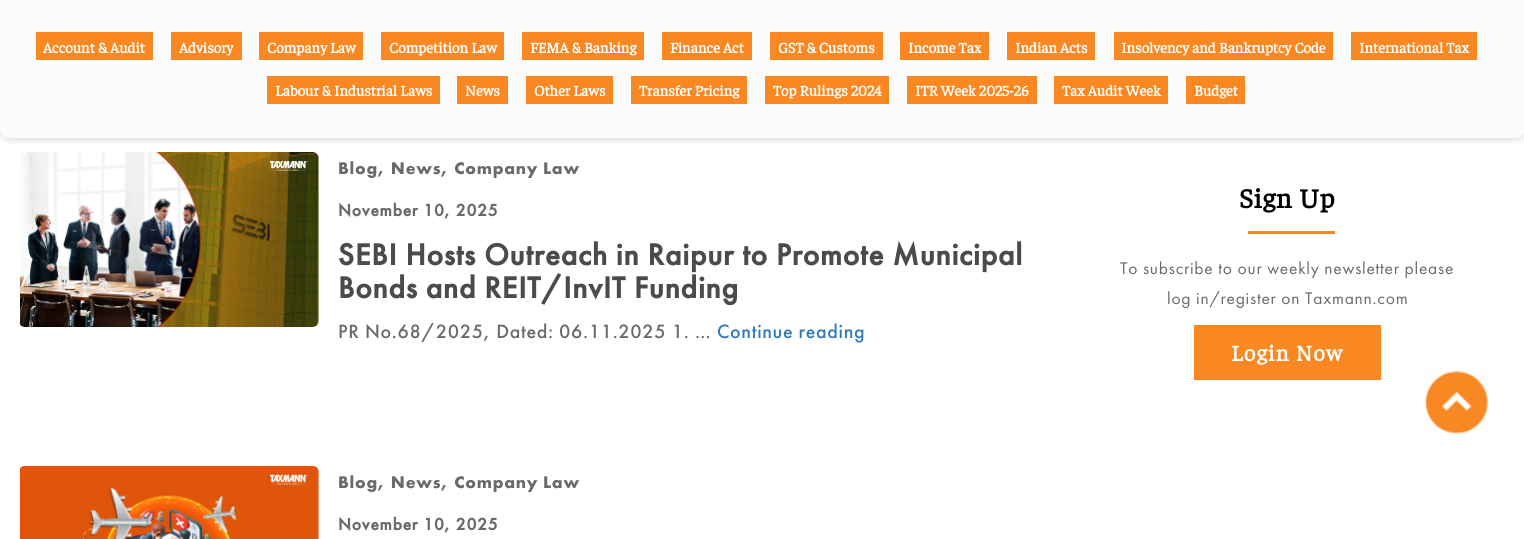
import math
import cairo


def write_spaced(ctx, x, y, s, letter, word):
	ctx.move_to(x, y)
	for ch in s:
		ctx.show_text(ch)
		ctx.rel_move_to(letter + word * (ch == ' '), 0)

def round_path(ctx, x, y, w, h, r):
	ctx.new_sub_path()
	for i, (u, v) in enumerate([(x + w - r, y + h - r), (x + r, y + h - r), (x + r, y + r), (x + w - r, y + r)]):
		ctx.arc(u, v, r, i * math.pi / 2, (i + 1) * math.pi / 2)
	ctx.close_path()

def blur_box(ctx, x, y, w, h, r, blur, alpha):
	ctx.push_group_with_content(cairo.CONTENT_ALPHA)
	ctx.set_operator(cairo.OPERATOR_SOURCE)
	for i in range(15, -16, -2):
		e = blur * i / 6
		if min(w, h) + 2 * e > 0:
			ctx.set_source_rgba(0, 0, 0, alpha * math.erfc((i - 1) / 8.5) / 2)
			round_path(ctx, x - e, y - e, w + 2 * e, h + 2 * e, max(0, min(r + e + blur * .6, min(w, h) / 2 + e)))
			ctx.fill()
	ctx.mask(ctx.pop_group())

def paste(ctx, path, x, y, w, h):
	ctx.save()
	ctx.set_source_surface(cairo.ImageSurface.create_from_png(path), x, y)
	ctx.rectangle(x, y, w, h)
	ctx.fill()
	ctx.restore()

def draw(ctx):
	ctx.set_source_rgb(1, 1, 1)
	ctx.paint()
	ctx.set_source_rgb(0.796, 0.78, 0.78)
	blur_box(ctx, 0, 0, 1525, 138, 9, 4, 1)
	ctx.set_source_rgb(0.984, 0.984, 0.984)
	ctx.new_path()
	ctx.move_to(0, 0)
	ctx.line_to(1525, 0)
	ctx.line_to(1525, 129)
	ctx.curve_to(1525, 134, 1521, 138, 1516, 138)
	ctx.line_to(9, 138)
	ctx.curve_to(4, 138, 0, 134, 0, 129)
	ctx.close_path()
	ctx.fill()
	ctx.set_source_rgb(0.973, 0.533, 0.133)
	ctx.rectangle(35.5, 31.5, 118, 29)
	ctx.fill_preserve()
	ctx.set_source_rgb(1, 1, 1)
	ctx.set_line_width(1)
	ctx.stroke()
	ctx.select_font_face('Faustina', cairo.FONT_SLANT_NORMAL, cairo.FONT_WEIGHT_BOLD)
	ctx.set_font_size(15)
	ctx.move_to(43, 53)
	ctx.show_text('Account & Audit')
	ctx.set_source_rgb(0.973, 0.533, 0.133)
	ctx.rectangle(170.5, 31.5, 72, 29)
	ctx.fill_preserve()
	ctx.set_source_rgb(1, 1, 1)
	ctx.stroke()
	ctx.move_to(179, 53)
	ctx.show_text('Advisory')
	ctx.set_source_rgb(0.973, 0.533, 0.133)
	ctx.rectangle(258.5, 31.5, 105, 29)
	ctx.fill_preserve()
	ctx.set_source_rgb(1, 1, 1)
	ctx.stroke()
	ctx.move_to(267, 53)
	ctx.show_text('Company Law')
	ctx.set_source_rgb(0.973, 0.533, 0.133)
	ctx.rectangle(380.5, 31.5, 124, 29)
	ctx.fill_preserve()
	ctx.set_source_rgb(1, 1, 1)
	ctx.stroke()
	ctx.move_to(389, 53)
	ctx.show_text('Competition Law')
	ctx.set_source_rgb(0.973, 0.533, 0.133)
	ctx.rectangle(521.5, 31.5, 123, 29)
	ctx.fill_preserve()
	ctx.set_source_rgb(1, 1, 1)
	ctx.stroke()
	ctx.move_to(530, 53)
	ctx.show_text('FEMA & Banking')
	ctx.set_source_rgb(0.973, 0.533, 0.133)
	ctx.rectangle(661.5, 31.5, 91, 29)
	ctx.fill_preserve()
	ctx.set_source_rgb(1, 1, 1)
	ctx.stroke()
	ctx.move_to(670, 53)
	ctx.show_text('Finance Act')
	ctx.set_source_rgb(0.973, 0.533, 0.133)
	ctx.rectangle(769.5, 31.5, 114, 29)
	ctx.fill_preserve()
	ctx.set_source_rgb(1, 1, 1)
	ctx.stroke()
	ctx.move_to(778, 53)
	ctx.show_text('GST & Customs')
	ctx.set_source_rgb(0.973, 0.533, 0.133)
	ctx.rectangle(899.5, 31.5, 90, 29)
	ctx.fill_preserve()
	ctx.set_source_rgb(1, 1, 1)
	ctx.stroke()
	ctx.move_to(908, 53)
	ctx.show_text('Income Tax')
	ctx.set_source_rgb(0.973, 0.533, 0.133)
	ctx.rectangle(1006.5, 31.5, 89, 29)
	ctx.fill_preserve()
	ctx.set_source_rgb(1, 1, 1)
	ctx.stroke()
	ctx.move_to(1015, 53)
	ctx.show_text('Indian Acts')
	ctx.set_source_rgb(0.973, 0.533, 0.133)
	ctx.rectangle(1113.5, 31.5, 220, 29)
	ctx.fill_preserve()
	ctx.set_source_rgb(1, 1, 1)
	ctx.stroke()
	ctx.move_to(1121, 53)
	ctx.show_text('Insolvency and Bankruptcy Code')
	ctx.set_source_rgb(0.973, 0.533, 0.133)
	ctx.rectangle(1350.5, 31.5, 127, 29)
	ctx.fill_preserve()
	ctx.set_source_rgb(1, 1, 1)
	ctx.stroke()
	ctx.move_to(1359, 53)
	ctx.show_text('International Tax')
	ctx.set_source_rgb(0.973, 0.533, 0.133)
	ctx.rectangle(266.5, 75.5, 174, 29)
	ctx.fill_preserve()
	ctx.set_source_rgb(1, 1, 1)
	ctx.stroke()
	ctx.move_to(275, 96)
	ctx.show_text('Labour & Industrial Laws')
	ctx.set_source_rgb(0.973, 0.533, 0.133)
	ctx.rectangle(456.5, 75.5, 52, 29)
	ctx.fill_preserve()
	ctx.set_source_rgb(1, 1, 1)
	ctx.stroke()
	ctx.move_to(465, 96)
	ctx.show_text('News')
	ctx.set_source_rgb(0.973, 0.533, 0.133)
	ctx.rectangle(525.5, 75.5, 88, 29)
	ctx.fill_preserve()
	ctx.set_source_rgb(1, 1, 1)
	ctx.stroke()
	ctx.move_to(534, 96)
	ctx.show_text('Other Laws')
	ctx.set_source_rgb(0.973, 0.533, 0.133)
	ctx.rectangle(630.5, 75.5, 117, 29)
	ctx.fill_preserve()
	ctx.set_source_rgb(1, 1, 1)
	ctx.stroke()
	ctx.move_to(639, 96)
	ctx.show_text('Transfer Pricing')
	ctx.set_source_rgb(0.973, 0.533, 0.133)
	ctx.rectangle(764.5, 75.5, 125, 29)
	ctx.fill_preserve()
	ctx.set_source_rgb(1, 1, 1)
	ctx.stroke()
	ctx.move_to(773, 96)
	ctx.show_text('Top Rulings 2024')
	ctx.set_source_rgb(0.973, 0.533, 0.133)
	ctx.rectangle(906.5, 75.5, 131, 29)
	ctx.fill_preserve()
	ctx.set_source_rgb(1, 1, 1)
	ctx.stroke()
	ctx.move_to(915, 96)
	ctx.show_text('ITR Week 2025-26')
	ctx.set_source_rgb(0.973, 0.533, 0.133)
	ctx.rectangle(1053.5, 75.5, 115, 29)
	ctx.fill_preserve()
	ctx.set_source_rgb(1, 1, 1)
	ctx.stroke()
	ctx.move_to(1062, 96)
	ctx.show_text('Tax Audit Week')
	ctx.set_source_rgb(0.973, 0.533, 0.133)
	ctx.rectangle(1185.5, 75.5, 60, 29)
	ctx.fill_preserve()
	ctx.set_source_rgb(1, 1, 1)
	ctx.stroke()
	ctx.move_to(1194, 96)
	ctx.show_text('Budget')
	paste(ctx, 'media/1.png', 20, 152, 299, 175)
	ctx.select_font_face('Futura PT', cairo.FONT_SLANT_NORMAL, cairo.FONT_WEIGHT_BOLD)
	ctx.set_font_size(17.5)
	ctx.set_source_rgb(0.416, 0.416, 0.416)
	write_spaced(ctx, 338, 174, 'Blog, News, Company Law', 0.75, 0)
	ctx.select_font_face('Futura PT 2', cairo.FONT_SLANT_NORMAL, cairo.FONT_WEIGHT_BOLD)
	write_spaced(ctx, 338, 216, 'November 10, 2025', 0.75, 0)
	ctx.set_font_size(31.25)
	ctx.set_source_rgb(0.294, 0.294, 0.294)
	write_spaced(ctx, 338, 265, 'SEBI Hosts Outreach in Raipur to Promote Municipal', 0.75, 0)
	write_spaced(ctx, 338, 298, 'Bonds and REIT/InvIT Funding', 0.75, 0)
	ctx.select_font_face('Futura PT Medium')
	ctx.set_font_size(20)
	ctx.set_source_rgb(0.416, 0.416, 0.416)
	write_spaced(ctx, 338, 338, 'PR No.68/2025, Dated: 06.11.2025 1. …', 0.65, 0)
	ctx.set_source_rgb(0.2, 0.478, 0.718)
	write_spaced(ctx, 717, 338, 'Continue reading', 0.65, 0)
	paste(ctx, 'media/2.png', 20, 465, 299, 74)
	ctx.select_font_face('Futura PT', cairo.FONT_SLANT_NORMAL, cairo.FONT_WEIGHT_BOLD)
	ctx.set_font_size(17.5)
	ctx.set_source_rgb(0.416, 0.416, 0.416)
	write_spaced(ctx, 338, 488, 'Blog, News, Company Law', 0.75, 0)
	ctx.select_font_face('Futura PT 2', cairo.FONT_SLANT_NORMAL, cairo.FONT_WEIGHT_BOLD)
	write_spaced(ctx, 338, 530, 'November 10, 2025', 0.75, 0)
	ctx.select_font_face('Faustina', cairo.FONT_SLANT_NORMAL, cairo.FONT_WEIGHT_BOLD)
	ctx.set_font_size(27.5)
	ctx.set_source_rgb(0, 0, 0)
	write_spaced(ctx, 1239, 208, 'Sign Up', 0.75, 0)
	ctx.set_source_rgb(0.973, 0.533, 0.133)
	ctx.rectangle(1248, 231, 87, 3)
	ctx.fill()
	ctx.select_font_face('Futura PT')
	ctx.set_font_size(17.5)
	ctx.set_source_rgb(0.416, 0.416, 0.416)
	write_spaced(ctx, 1120, 274, 'To subscribe to our weekly newsletter please', 0.75, 0)
	write_spaced(ctx, 1167, 304, 'log in/register on Taxmann.com', 0.75, 0)
	ctx.set_source_rgb(0.973, 0.533, 0.133)
	ctx.rectangle(1194, 325, 187, 55)
	ctx.fill()
	ctx.select_font_face('Faustina', cairo.FONT_SLANT_NORMAL, cairo.FONT_WEIGHT_BOLD)
	ctx.set_font_size(22.5)
	ctx.set_source_rgb(1, 1, 1)
	write_spaced(ctx, 1231, 361, 'Login Now', 1.25, 0)
	paste(ctx, 'media/3.png', 1425, 371, 63, 63)


surface = cairo.ImageSurface(cairo.FORMAT_RGB24, 1524, 539)
ctx = cairo.Context(surface)
options = cairo.FontOptions()
options.set_hint_metrics(cairo.HINT_METRICS_OFF)
options.set_hint_style(cairo.HINT_STYLE_NONE)
ctx.set_font_options(options)
ctx.set_miter_limit(4)
draw(ctx)
surface.write_to_png('image.png')
